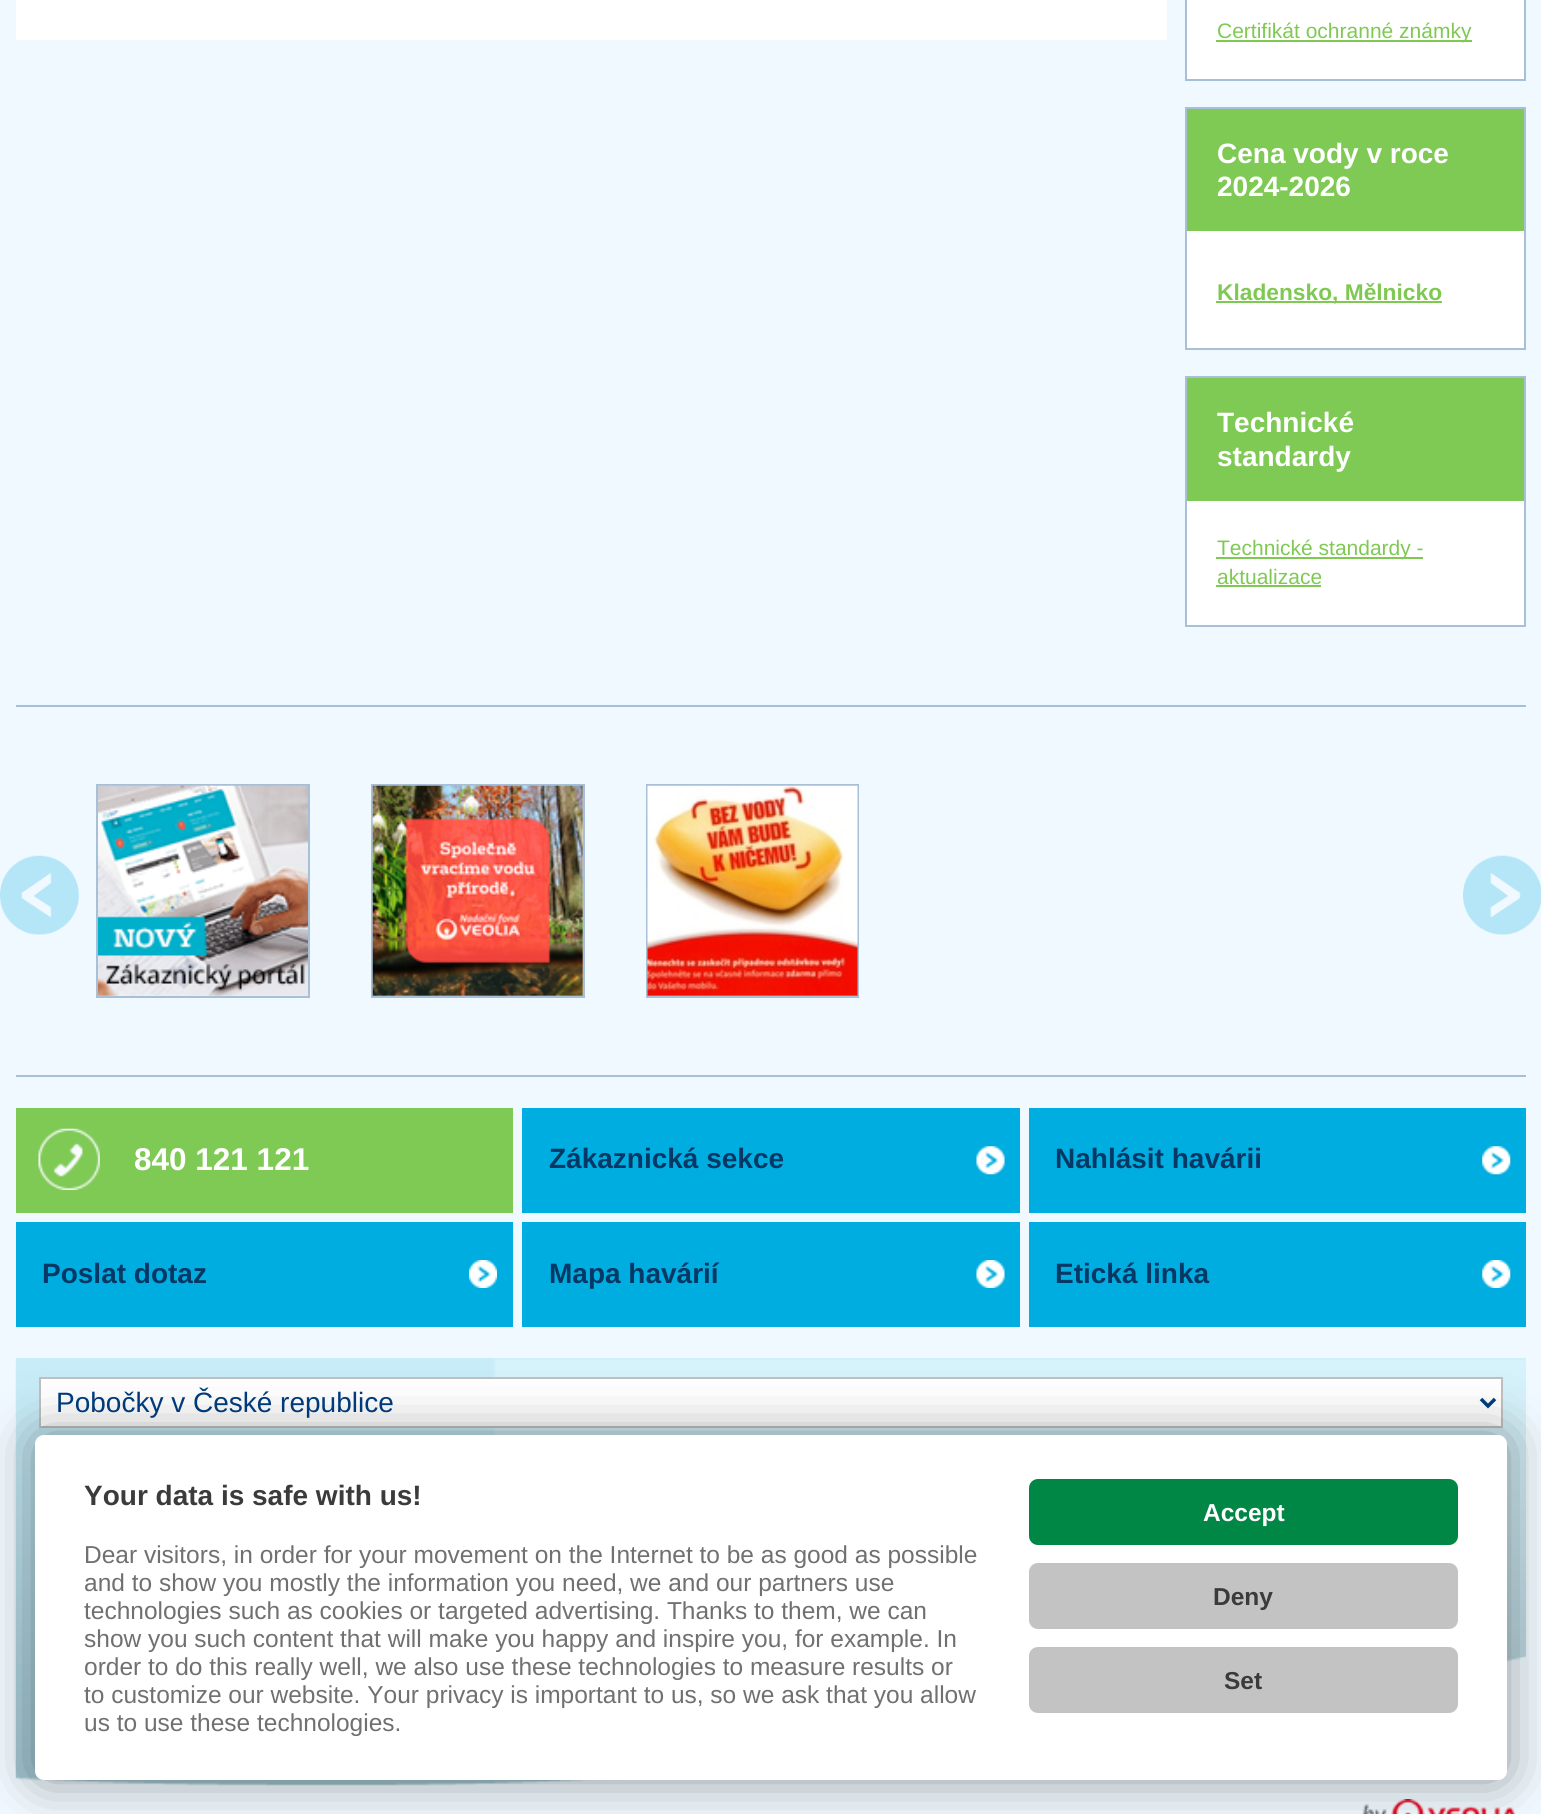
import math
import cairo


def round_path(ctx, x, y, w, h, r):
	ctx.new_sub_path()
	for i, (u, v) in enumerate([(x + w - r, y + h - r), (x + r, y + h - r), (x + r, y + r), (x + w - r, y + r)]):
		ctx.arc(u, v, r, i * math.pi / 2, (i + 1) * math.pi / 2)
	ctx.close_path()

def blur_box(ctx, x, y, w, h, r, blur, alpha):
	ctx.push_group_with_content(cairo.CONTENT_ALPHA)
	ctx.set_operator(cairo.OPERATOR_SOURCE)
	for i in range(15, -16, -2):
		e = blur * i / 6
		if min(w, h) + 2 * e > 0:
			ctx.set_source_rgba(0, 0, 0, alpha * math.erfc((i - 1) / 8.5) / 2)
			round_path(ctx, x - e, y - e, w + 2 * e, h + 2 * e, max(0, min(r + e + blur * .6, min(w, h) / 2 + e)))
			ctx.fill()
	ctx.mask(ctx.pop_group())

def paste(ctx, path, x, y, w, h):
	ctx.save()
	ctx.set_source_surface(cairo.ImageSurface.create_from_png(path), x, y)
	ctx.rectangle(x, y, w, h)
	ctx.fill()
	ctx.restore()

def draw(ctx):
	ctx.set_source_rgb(0.941, 0.973, 1)
	ctx.paint()
	ctx.set_source_rgb(1, 1, 1)
	ctx.rectangle(16, 0, 1151, 40)
	ctx.fill()
	ctx.rectangle(1186, -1, 339, 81)
	ctx.fill_preserve()
	ctx.set_source_rgb(0.659, 0.753, 0.843)
	ctx.stroke()
	ctx.set_source_rgb(0.498, 0.788, 0.325)
	ctx.rectangle(1216, 40, 256, 2)
	ctx.fill()
	ctx.select_font_face('Liberation Sans')
	ctx.set_font_size(21)
	ctx.move_to(1217, 38)
	ctx.show_text('Certifikát ochranné známky')
	ctx.set_source_rgb(1, 1, 1)
	ctx.rectangle(1187, 231, 337, 117)
	ctx.fill()
	ctx.rectangle(1186, 108, 339, 241)
	ctx.set_source_rgb(0.659, 0.753, 0.843)
	ctx.stroke()
	ctx.set_source_rgb(0.498, 0.788, 0.333)
	ctx.rectangle(1187, 109, 337, 122)
	ctx.fill()
	ctx.select_font_face('Liberation Sans', cairo.FONT_SLANT_NORMAL, cairo.FONT_WEIGHT_BOLD)
	ctx.set_font_size(28)
	ctx.set_source_rgb(1, 1, 1)
	ctx.move_to(1217, 163)
	ctx.show_text('Cena vody v roce')
	ctx.move_to(1217, 196)
	ctx.show_text('2024-2026')
	ctx.set_source_rgb(0.498, 0.788, 0.325)
	ctx.rectangle(1216, 301, 226, 2)
	ctx.fill()
	ctx.set_font_size(22.75)
	ctx.move_to(1217, 300)
	ctx.show_text('Kladensko, Mělnicko')
	ctx.set_source_rgb(1, 1, 1)
	ctx.rectangle(1187, 501, 337, 124)
	ctx.fill()
	ctx.rectangle(1186, 377, 339, 249)
	ctx.set_source_rgb(0.659, 0.753, 0.843)
	ctx.stroke()
	ctx.set_source_rgb(0.498, 0.788, 0.333)
	ctx.rectangle(1187, 378, 337, 123)
	ctx.fill()
	ctx.set_font_size(28)
	ctx.set_source_rgb(1, 1, 1)
	ctx.move_to(1217, 432)
	ctx.show_text('Technické')
	ctx.move_to(1217, 466)
	ctx.show_text('standardy')
	ctx.set_source_rgb(0.498, 0.788, 0.325)
	ctx.rectangle(1216, 557, 207, 2)
	ctx.fill()
	ctx.select_font_face('Liberation Sans')
	ctx.set_font_size(21)
	ctx.move_to(1217, 555)
	ctx.show_text('Technické standardy -')
	ctx.move_to(1217, 584)
	ctx.show_text('aktualizace')
	ctx.rectangle(1216, 585, 105, 2)
	ctx.fill()
	ctx.set_source_rgb(0.659, 0.753, 0.843)
	ctx.rectangle(16, 705, 1510, 2)
	ctx.rectangle(16, 1075, 1510, 2)
	ctx.fill()
	paste(ctx, 'media/1.png', 0, 855, 79, 80)
	ctx.rectangle(97, 785, 212, 212)
	ctx.stroke()
	paste(ctx, 'media/2.png', 98, 785, 210, 211)
	ctx.rectangle(372, 785, 212, 212)
	ctx.stroke()
	paste(ctx, 'media/3.png', 372, 785, 211, 211)
	ctx.rectangle(647, 785, 211, 212)
	ctx.stroke()
	paste(ctx, 'media/4.png', 647, 785, 211, 211)
	paste(ctx, 'media/5.png', 1463, 855, 78, 80)
	ctx.set_source_rgb(0.498, 0.788, 0.333)
	ctx.rectangle(16, 1108, 497, 105)
	ctx.fill()
	paste(ctx, 'media/6.png', 38, 1128, 62, 62)
	ctx.select_font_face('Liberation Sans', cairo.FONT_SLANT_NORMAL, cairo.FONT_WEIGHT_BOLD)
	ctx.set_font_size(31.5)
	ctx.set_source_rgb(1, 1, 1)
	ctx.move_to(134, 1170)
	ctx.show_text('840 121 121')
	ctx.set_source_rgb(0, 0.678, 0.878)
	ctx.rectangle(522, 1108, 498, 105)
	ctx.fill()
	ctx.set_font_size(28)
	ctx.set_source_rgb(0.02, 0.22, 0.396)
	ctx.move_to(549, 1168)
	ctx.show_text('Zákaznická sekce')
	paste(ctx, 'media/7.png', 976, 1146, 29, 29)
	ctx.set_source_rgb(0, 0.678, 0.878)
	ctx.rectangle(1029, 1108, 497, 105)
	ctx.fill()
	ctx.set_source_rgb(0.02, 0.22, 0.396)
	ctx.move_to(1055, 1168)
	ctx.show_text('Nahlásit havárii')
	paste(ctx, 'media/8.png', 1482, 1146, 29, 29)
	ctx.set_source_rgb(0, 0.678, 0.878)
	ctx.rectangle(16, 1222, 497, 105)
	ctx.fill()
	ctx.set_source_rgb(0.02, 0.22, 0.396)
	ctx.move_to(42, 1283)
	ctx.show_text('Poslat dotaz')
	paste(ctx, 'media/9.png', 469, 1260, 28, 28)
	ctx.set_source_rgb(0, 0.678, 0.878)
	ctx.rectangle(522, 1222, 498, 105)
	ctx.fill()
	ctx.set_source_rgb(0.02, 0.22, 0.396)
	ctx.move_to(549, 1283)
	ctx.show_text('Mapa havárií')
	paste(ctx, 'media/10.png', 976, 1260, 29, 28)
	ctx.set_source_rgb(0, 0.678, 0.878)
	ctx.rectangle(1029, 1222, 497, 105)
	ctx.fill()
	ctx.set_source_rgb(0.02, 0.22, 0.396)
	ctx.move_to(1055, 1283)
	ctx.show_text('Etická linka')
	paste(ctx, 'media/11.png', 1482, 1260, 29, 28)
	paste(ctx, 'media/12.png', 15, 1358, 1511, 428)
	ctx.set_source_rgb(1, 1, 1)
	ctx.rectangle(40, 1378, 1462, 49)
	ctx.fill_preserve()
	ctx.set_source_rgb(0.753, 0.753, 0.753)
	ctx.stroke()
	ctx.new_path()
	ctx.move_to(1481, 1399)
	ctx.line_to(1488, 1406)
	ctx.line_to(1495, 1399)
	ctx.set_source_rgb(0, 0.239, 0.498)
	ctx.set_line_width(3.5)
	ctx.stroke()
	ctx.select_font_face('Liberation Sans')
	ctx.move_to(56, 1412)
	ctx.show_text('Pobočky v České republice')
	paste(ctx, 'media/13.png', 1362, 1799, 154, 15)
	ctx.set_source_rgb(0, 0, 0)
	blur_box(ctx, 35, 1435, 1472, 345, 9, 26, 0.4)
	ctx.set_source_rgb(1, 1, 1)
	round_path(ctx, 35, 1435, 1472, 345, 9)
	ctx.fill()
	ctx.select_font_face('Liberation Sans', cairo.FONT_SLANT_NORMAL, cairo.FONT_WEIGHT_BOLD)
	ctx.set_source_rgb(0.231, 0.231, 0.231)
	ctx.move_to(84, 1505)
	ctx.show_text('Your data is safe with us!')
	ctx.select_font_face('Liberation Sans')
	ctx.set_font_size(24.5)
	ctx.set_source_rgb(0.439, 0.439, 0.439)
	for x, y, s in [
		(84, 1563, 'Dear visitors, in order for your movement on the Internet to be as good as possible'),
		(84, 1591, 'and to show you mostly the information you need, we and our partners use'),
		(84, 1619, 'technologies such as cookies or targeted advertising. Thanks to them, we can'),
		(84, 1647, 'show you such content that will make you happy and inspire you, for example. In'),
		(84, 1675, 'order to do this really well, we also use these technologies to measure results or'),
		(84, 1703, 'to customize our website. Your privacy is important to us, so we ask that you allow'),
		(84, 1731, 'us to use these technologies.'),
	]:
		ctx.move_to(x, y)
		ctx.show_text(s)
	ctx.set_source_rgb(0, 0.529, 0.271)
	round_path(ctx, 1029, 1479, 429, 66, 9)
	ctx.fill()
	ctx.select_font_face('Liberation Sans', cairo.FONT_SLANT_NORMAL, cairo.FONT_WEIGHT_BOLD)
	ctx.set_source_rgb(1, 1, 1)
	ctx.move_to(1203, 1521)
	ctx.show_text('Accept')
	ctx.set_source_rgb(0.765, 0.765, 0.765)
	round_path(ctx, 1029, 1563, 429, 66, 9)
	ctx.fill()
	ctx.set_source_rgb(0.231, 0.231, 0.231)
	ctx.move_to(1213, 1605)
	ctx.show_text('Deny')
	ctx.set_source_rgb(0.765, 0.765, 0.765)
	round_path(ctx, 1029, 1647, 429, 66, 9)
	ctx.fill()
	ctx.set_source_rgb(0.231, 0.231, 0.231)
	ctx.move_to(1224, 1689)
	ctx.show_text('Set')


surface = cairo.ImageSurface(cairo.FORMAT_RGB24, 1541, 1814)
ctx = cairo.Context(surface)
options = cairo.FontOptions()
options.set_hint_metrics(cairo.HINT_METRICS_OFF)
options.set_hint_style(cairo.HINT_STYLE_NONE)
ctx.set_font_options(options)
ctx.set_miter_limit(4)
draw(ctx)
surface.write_to_png('image.png')
